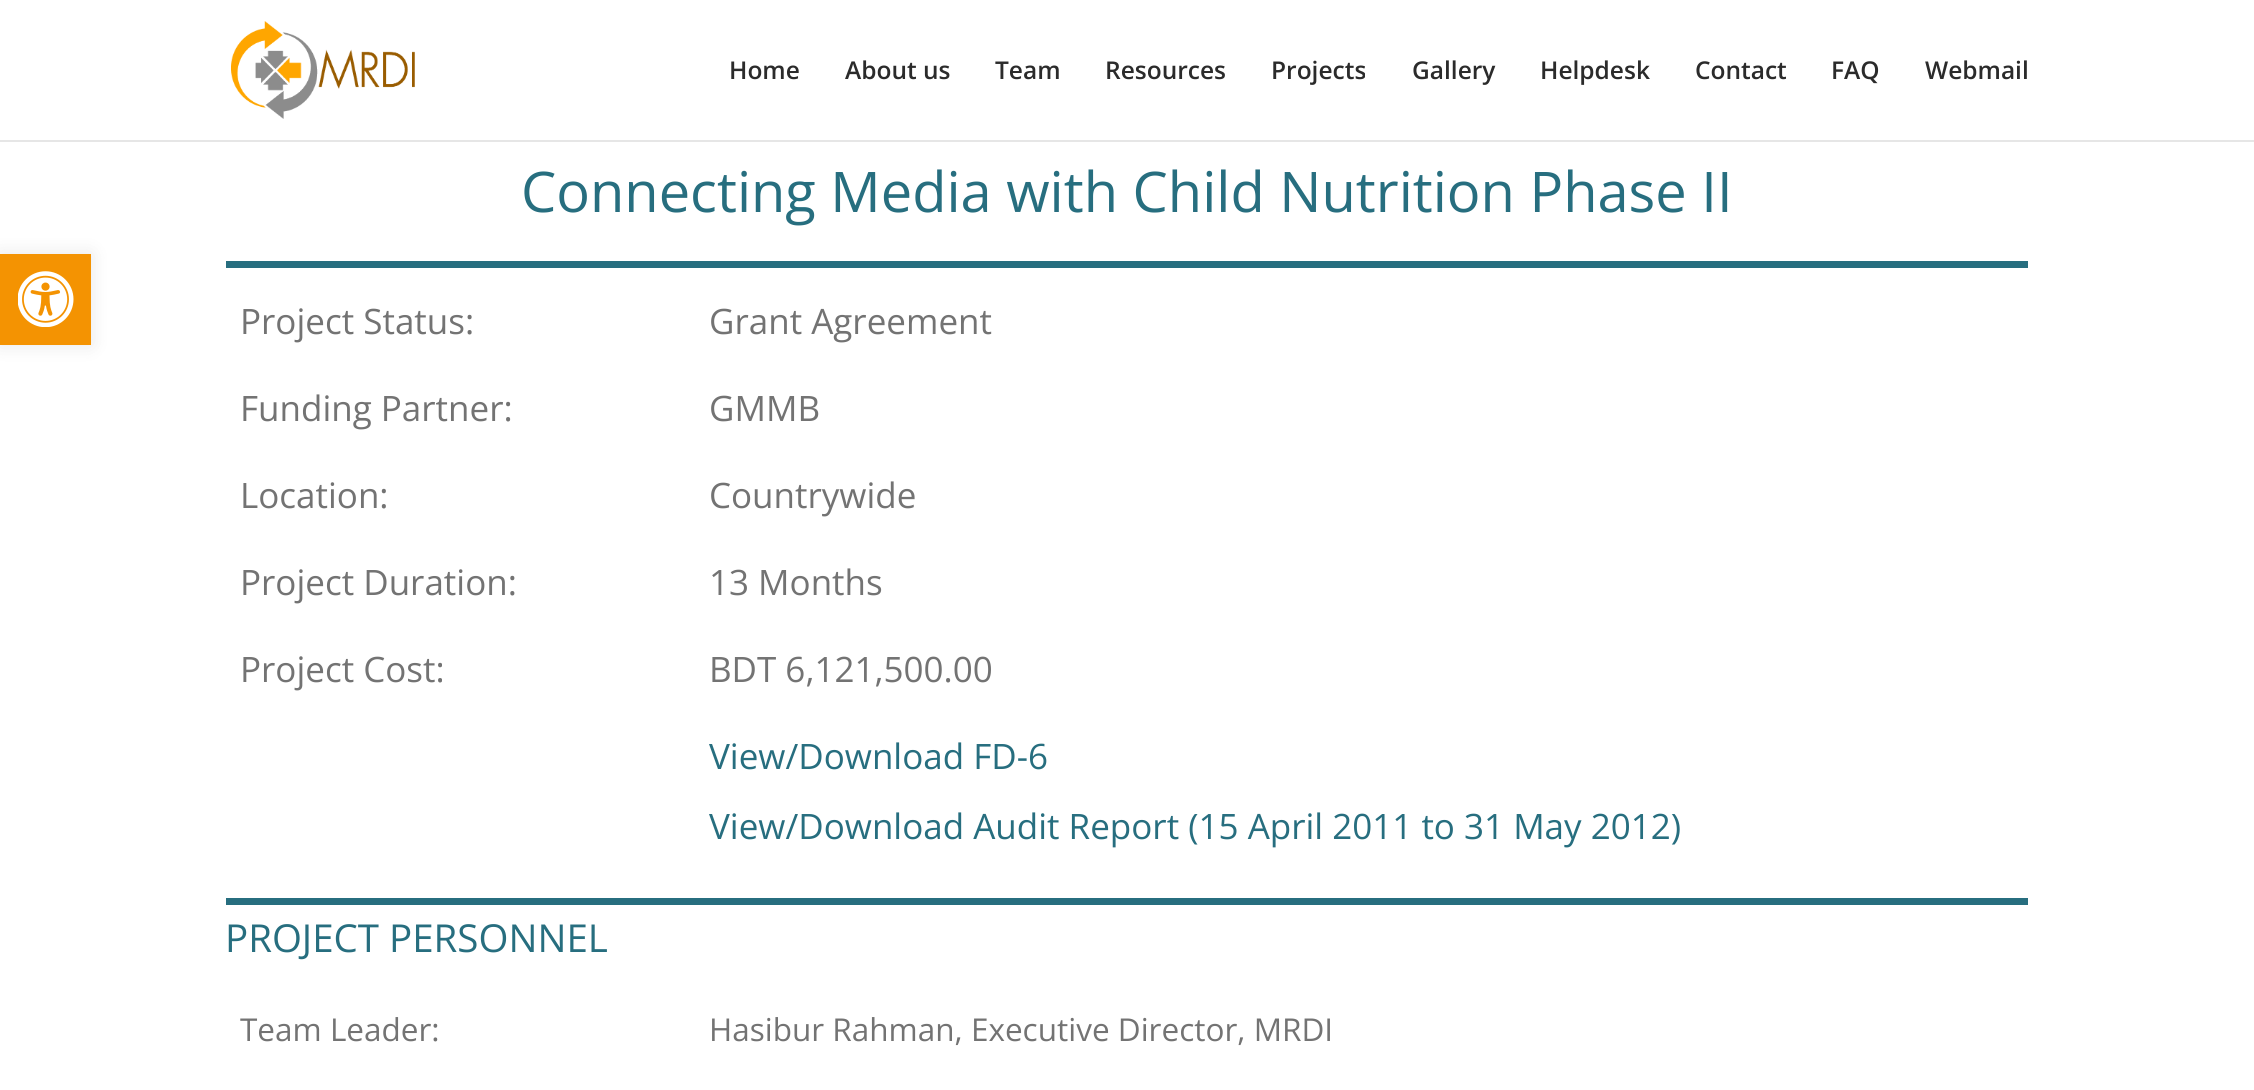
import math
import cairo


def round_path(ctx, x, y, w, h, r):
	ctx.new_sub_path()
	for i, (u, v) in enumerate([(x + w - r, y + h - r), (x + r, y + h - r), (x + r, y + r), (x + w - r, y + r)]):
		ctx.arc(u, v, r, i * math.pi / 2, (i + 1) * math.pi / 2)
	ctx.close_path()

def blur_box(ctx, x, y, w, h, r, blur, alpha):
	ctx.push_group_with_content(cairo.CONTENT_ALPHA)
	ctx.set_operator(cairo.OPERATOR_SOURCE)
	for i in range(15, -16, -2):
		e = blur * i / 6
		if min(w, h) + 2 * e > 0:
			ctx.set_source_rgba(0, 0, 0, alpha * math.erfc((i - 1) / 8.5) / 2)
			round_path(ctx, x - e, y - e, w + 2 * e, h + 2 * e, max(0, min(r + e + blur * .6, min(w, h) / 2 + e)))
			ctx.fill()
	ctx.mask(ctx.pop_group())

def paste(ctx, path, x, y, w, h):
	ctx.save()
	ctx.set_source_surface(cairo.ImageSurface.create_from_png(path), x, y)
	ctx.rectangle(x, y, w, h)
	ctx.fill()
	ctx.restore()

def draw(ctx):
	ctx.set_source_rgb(1, 1, 1)
	ctx.paint()
	ctx.set_source_rgb(0, 0, 0)
	blur_box(ctx, 0, 254, 91, 91, 0, 9, 0.1)
	ctx.set_source_rgb(0.957, 0.576, 0.008)
	ctx.rectangle(0, 254, 91, 91)
	ctx.fill()
	paste(ctx, 'media/1.png', 18, 271, 56, 56)
	ctx.set_source_rgb(0.902, 0.902, 0.902)
	ctx.rectangle(0, 140, 2254, 2)
	ctx.fill()
	paste(ctx, 'media/2.png', 231, 21, 184, 98)
	ctx.select_font_face('Open Sans SemiBold')
	ctx.set_font_size(24.5)
	ctx.set_source_rgb(0.169, 0.169, 0.169)
	for x, y, s in [
		(729, 79, 'Home'),
		(845, 79, 'About us'),
		(995, 79, 'Team'),
		(1105, 79, 'Resources'),
		(1271, 79, 'Projects'),
		(1412, 79, 'Gallery'),
		(1540, 79, 'Helpdesk'),
		(1695, 79, 'Contact'),
		(1831, 79, 'FAQ'),
		(1925, 79, 'Webmail'),
	]:
		ctx.move_to(x, y)
		ctx.show_text(s)
	ctx.select_font_face('Open Sans')
	ctx.set_font_size(56)
	ctx.set_source_rgb(0.153, 0.431, 0.498)
	ctx.move_to(521, 212)
	ctx.show_text('Connecting Media with Child Nutrition Phase II')
	ctx.rectangle(226, 261, 1802, 7)
	ctx.fill()
	ctx.set_font_size(35)
	ctx.set_source_rgb(0.451, 0.451, 0.451)
	for x, y, s in [
		(240, 334, 'Project Status:'),
		(709, 334, 'Grant Agreement'),
		(240, 421, 'Funding Partner:'),
		(709, 421, 'GMMB'),
		(240, 508, 'Location:'),
		(709, 508, 'Countrywide'),
		(240, 595, 'Project Duration:'),
		(709, 595, '13 Months'),
		(240, 682, 'Project Cost:'),
		(709, 682, 'BDT 6,121,500.00'),
	]:
		ctx.move_to(x, y)
		ctx.show_text(s)
	ctx.set_source_rgb(0.153, 0.431, 0.498)
	ctx.move_to(709, 769)
	ctx.show_text('View/Download FD-6')
	ctx.move_to(709, 839)
	ctx.show_text('View/Download Audit Report (15 April 2011 to 31 May 2012)')
	ctx.rectangle(226, 898, 1802, 7)
	ctx.fill()
	ctx.set_font_size(38.5)
	ctx.move_to(225, 952)
	ctx.show_text('PROJECT PERSONNEL')
	ctx.set_font_size(31.5)
	ctx.set_source_rgb(0.451, 0.451, 0.451)
	ctx.move_to(240, 1041)
	ctx.show_text('Team Leader:')
	ctx.move_to(709, 1041)
	ctx.show_text('Hasibur Rahman, Executive Director, MRDI')


surface = cairo.ImageSurface(cairo.FORMAT_RGB24, 2254, 1090)
ctx = cairo.Context(surface)
options = cairo.FontOptions()
options.set_hint_metrics(cairo.HINT_METRICS_OFF)
options.set_hint_style(cairo.HINT_STYLE_NONE)
ctx.set_font_options(options)
ctx.set_miter_limit(4)
draw(ctx)
surface.write_to_png('image.png')
